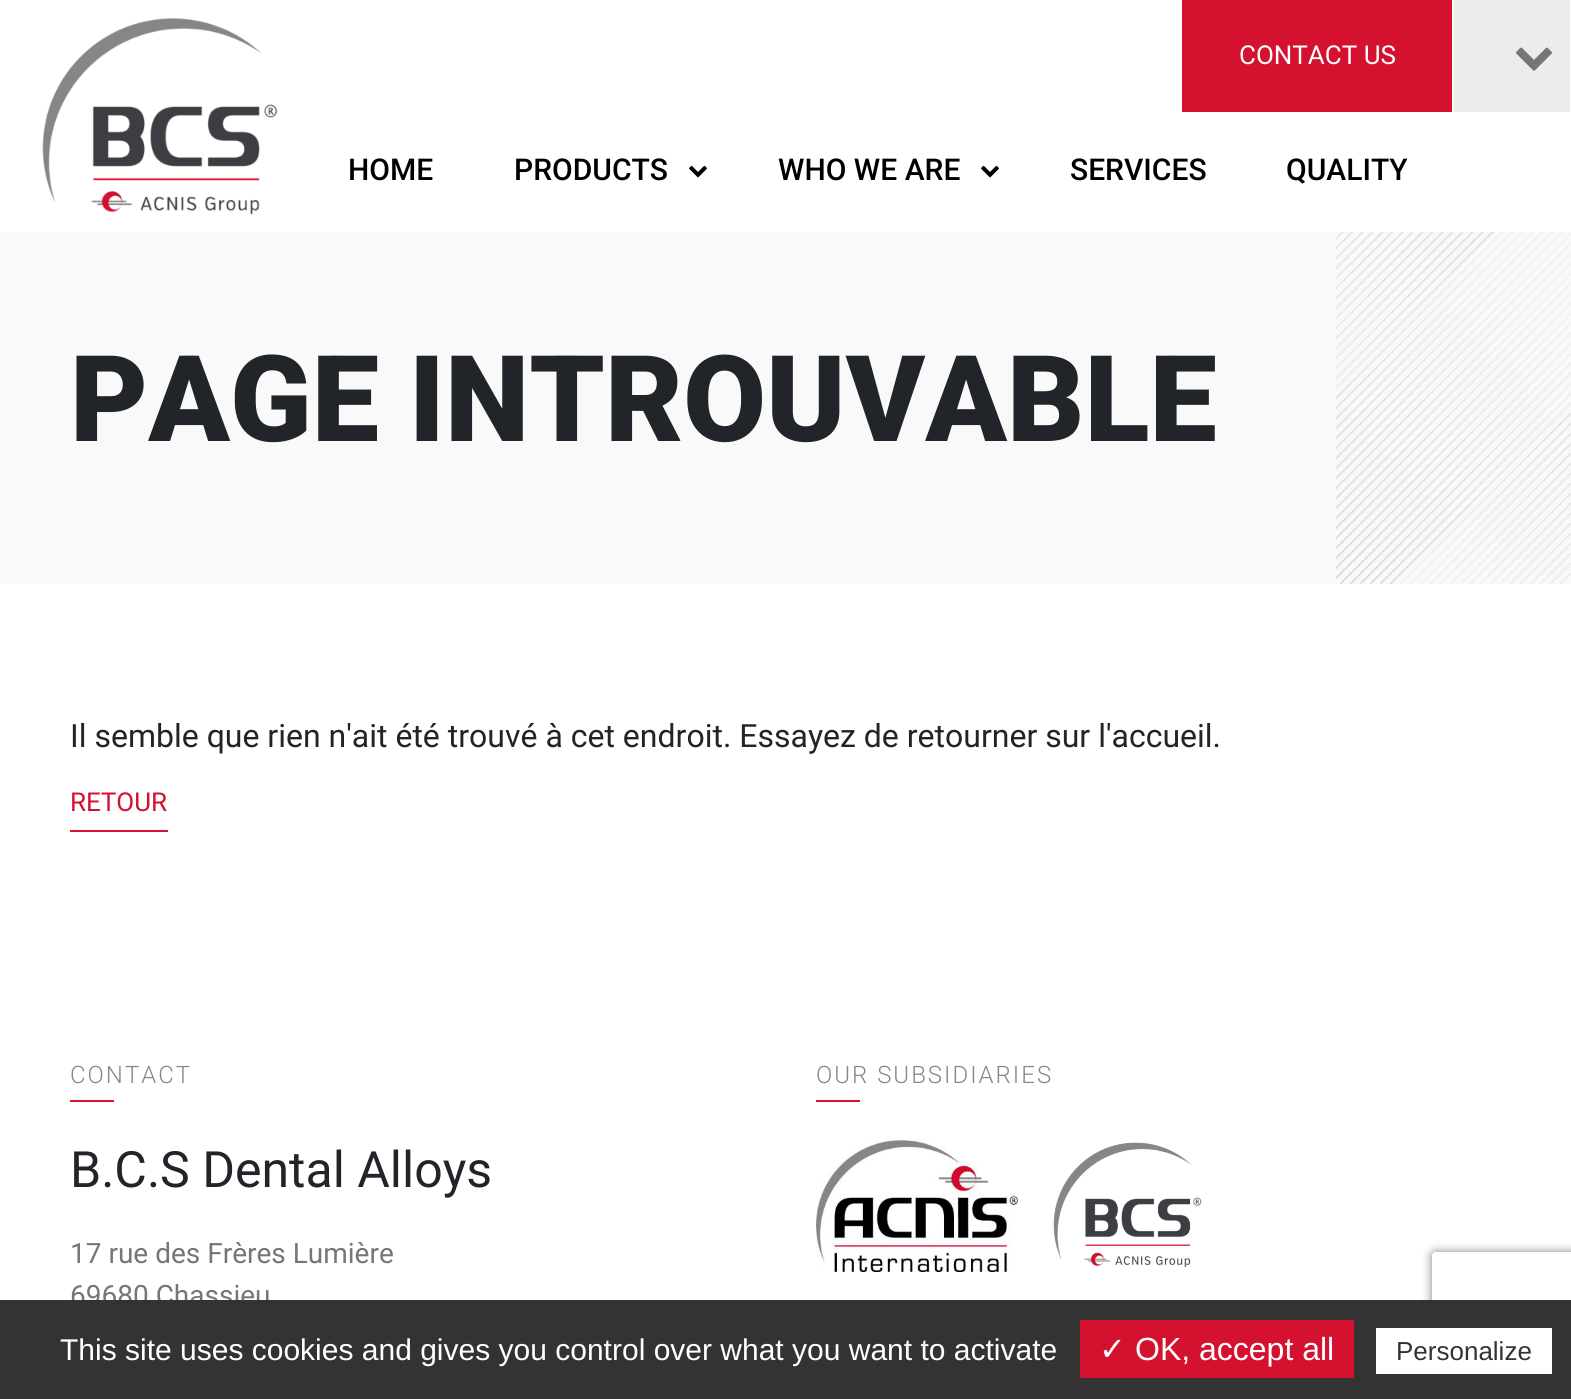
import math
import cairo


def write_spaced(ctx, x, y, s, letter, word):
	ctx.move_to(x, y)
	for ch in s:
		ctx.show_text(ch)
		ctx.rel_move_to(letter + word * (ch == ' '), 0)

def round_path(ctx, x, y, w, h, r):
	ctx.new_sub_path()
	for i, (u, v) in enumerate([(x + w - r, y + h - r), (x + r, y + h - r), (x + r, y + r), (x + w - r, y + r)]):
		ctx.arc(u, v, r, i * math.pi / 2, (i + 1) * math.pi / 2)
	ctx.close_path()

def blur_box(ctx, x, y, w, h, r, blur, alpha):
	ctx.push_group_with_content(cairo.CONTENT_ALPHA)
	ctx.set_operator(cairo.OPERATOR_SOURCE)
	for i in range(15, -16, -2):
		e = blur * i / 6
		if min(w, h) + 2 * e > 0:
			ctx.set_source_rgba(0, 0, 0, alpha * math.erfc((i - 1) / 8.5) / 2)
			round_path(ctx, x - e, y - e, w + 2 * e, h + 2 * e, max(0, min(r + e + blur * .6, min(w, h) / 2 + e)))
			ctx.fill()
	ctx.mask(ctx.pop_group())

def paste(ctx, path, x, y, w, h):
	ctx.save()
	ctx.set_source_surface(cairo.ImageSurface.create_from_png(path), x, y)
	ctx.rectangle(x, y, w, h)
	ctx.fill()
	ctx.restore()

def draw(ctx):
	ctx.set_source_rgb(1, 1, 1)
	ctx.paint()
	ctx.set_source_rgb(0.835, 0.067, 0.188)
	ctx.rectangle(1182, 0, 270, 112)
	ctx.fill()
	ctx.select_font_face('Roboto')
	ctx.set_font_size(26)
	ctx.set_source_rgb(1, 1, 1)
	ctx.move_to(1239, 64)
	ctx.show_text('CONTACT US')
	ctx.set_source_rgb(0.922, 0.922, 0.925)
	ctx.rectangle(1454, 0, 116, 112)
	ctx.fill()
	paste(ctx, 'media/1.png', 1516, 47, 36, 24)
	paste(ctx, 'media/2.png', 42, 17, 236, 198)
	ctx.select_font_face('Roboto Medium')
	ctx.set_font_size(30)
	ctx.set_source_rgb(0, 0, 0)
	ctx.move_to(348, 180)
	ctx.show_text('HOME')
	ctx.move_to(514, 180)
	ctx.show_text('PRODUCTS')
	paste(ctx, 'media/3.png', 689, 165, 18, 13)
	ctx.move_to(778, 180)
	ctx.show_text('WHO WE ARE')
	paste(ctx, 'media/3.png', 981, 165, 18, 13)
	ctx.move_to(1070, 180)
	ctx.show_text('SERVICES')
	ctx.move_to(1286, 180)
	ctx.show_text('QUALITY')
	ctx.set_source_rgb(0.976, 0.976, 0.976)
	ctx.rectangle(0, 232, 1571, 352)
	ctx.fill()
	ctx.select_font_face('Roboto Black')
	ctx.set_font_size(120)
	ctx.set_source_rgb(0.129, 0.145, 0.161)
	ctx.move_to(70, 441)
	ctx.show_text('PAGE INTROUVABLE')
	paste(ctx, 'media/4.png', 1336, 232, 235, 352)
	ctx.select_font_face('Roboto')
	ctx.set_font_size(32)
	ctx.move_to(70, 747)
	ctx.show_text('Il semble que rien n\'ait été trouvé à cet endroit. Essayez de retourner sur l\'accueil.')
	ctx.set_font_size(26)
	ctx.set_source_rgb(0.835, 0.067, 0.188)
	ctx.move_to(70, 811)
	ctx.show_text('RETOUR')
	ctx.rectangle(70, 830, 98, 2)
	ctx.fill()
	ctx.select_font_face('Roboto Light')
	ctx.set_font_size(24)
	ctx.set_source_rgb(0.529, 0.529, 0.529)
	write_spaced(ctx, 70, 1083, 'CONTACT', 2, 0)
	ctx.set_source_rgb(0.835, 0.067, 0.188)
	ctx.rectangle(70, 1100, 44, 2)
	ctx.fill()
	ctx.select_font_face('Roboto')
	ctx.set_font_size(50)
	ctx.set_source_rgb(0.129, 0.145, 0.161)
	ctx.move_to(70, 1187)
	ctx.show_text('B.C.S Dental Alloys')
	ctx.set_font_size(28)
	ctx.set_source_rgb(0.463, 0.463, 0.463)
	ctx.move_to(70, 1263)
	ctx.show_text('17 rue des Frères Lumière')
	ctx.move_to(70, 1305)
	ctx.show_text('69680 Chassieu')
	ctx.select_font_face('Roboto Light')
	ctx.set_font_size(24)
	ctx.set_source_rgb(0.529, 0.529, 0.529)
	write_spaced(ctx, 816, 1083, 'OUR SUBSIDIARIES', 2, 0)
	ctx.set_source_rgb(0.835, 0.067, 0.188)
	ctx.rectangle(816, 1100, 44, 2)
	ctx.fill()
	paste(ctx, 'media/5.png', 816, 1140, 202, 132)
	paste(ctx, 'media/6.png', 1053, 1142, 149, 126)
	ctx.save()
	ctx.set_fill_rule(cairo.FILL_RULE_EVEN_ODD)
	ctx.new_path()
	ctx.move_to(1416, 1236)
	ctx.line_to(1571, 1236)
	ctx.line_to(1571, 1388)
	ctx.line_to(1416, 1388)
	ctx.close_path()
	ctx.move_to(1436, 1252)
	ctx.line_to(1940, 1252)
	ctx.curve_to(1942, 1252, 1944, 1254, 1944, 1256)
	ctx.line_to(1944, 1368)
	ctx.curve_to(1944, 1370, 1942, 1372, 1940, 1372)
	ctx.line_to(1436, 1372)
	ctx.curve_to(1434, 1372, 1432, 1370, 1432, 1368)
	ctx.line_to(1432, 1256)
	ctx.curve_to(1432, 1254, 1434, 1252, 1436, 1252)
	ctx.close_path()
	ctx.clip()
	ctx.set_source_rgb(0.502, 0.502, 0.502)
	blur_box(ctx, 1432, 1252, 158, 120, 4, 5, 1)
	ctx.restore()
	ctx.set_source_rgb(0.2, 0.2, 0.2)
	ctx.rectangle(0, 1300, 1571, 99)
	ctx.fill()
	ctx.select_font_face('Liberation Sans')
	ctx.set_font_size(30)
	ctx.set_source_rgb(1, 1, 1)
	ctx.move_to(60, 1360)
	ctx.show_text('This site uses cookies and gives you control over what you want to activate')
	ctx.set_source_rgb(0.835, 0.067, 0.188)
	ctx.rectangle(1080, 1320, 274, 58)
	ctx.fill()
	ctx.select_font_face('DejaVu Sans')
	ctx.set_font_size(32)
	ctx.set_source_rgb(1, 1, 1)
	ctx.move_to(1099, 1360)
	ctx.show_text('✓')
	ctx.select_font_face('Liberation Sans')
	ctx.move_to(1135, 1360)
	ctx.show_text('OK, accept all')
	ctx.rectangle(1376, 1328, 176, 46)
	ctx.fill()
	ctx.set_font_size(26)
	ctx.set_source_rgb(0.2, 0.2, 0.2)
	ctx.move_to(1396, 1360)
	ctx.show_text('Personalize')


surface = cairo.ImageSurface(cairo.FORMAT_RGB24, 1571, 1399)
ctx = cairo.Context(surface)
options = cairo.FontOptions()
options.set_hint_metrics(cairo.HINT_METRICS_OFF)
options.set_hint_style(cairo.HINT_STYLE_NONE)
ctx.set_font_options(options)
ctx.set_miter_limit(4)
draw(ctx)
surface.write_to_png('image.png')
